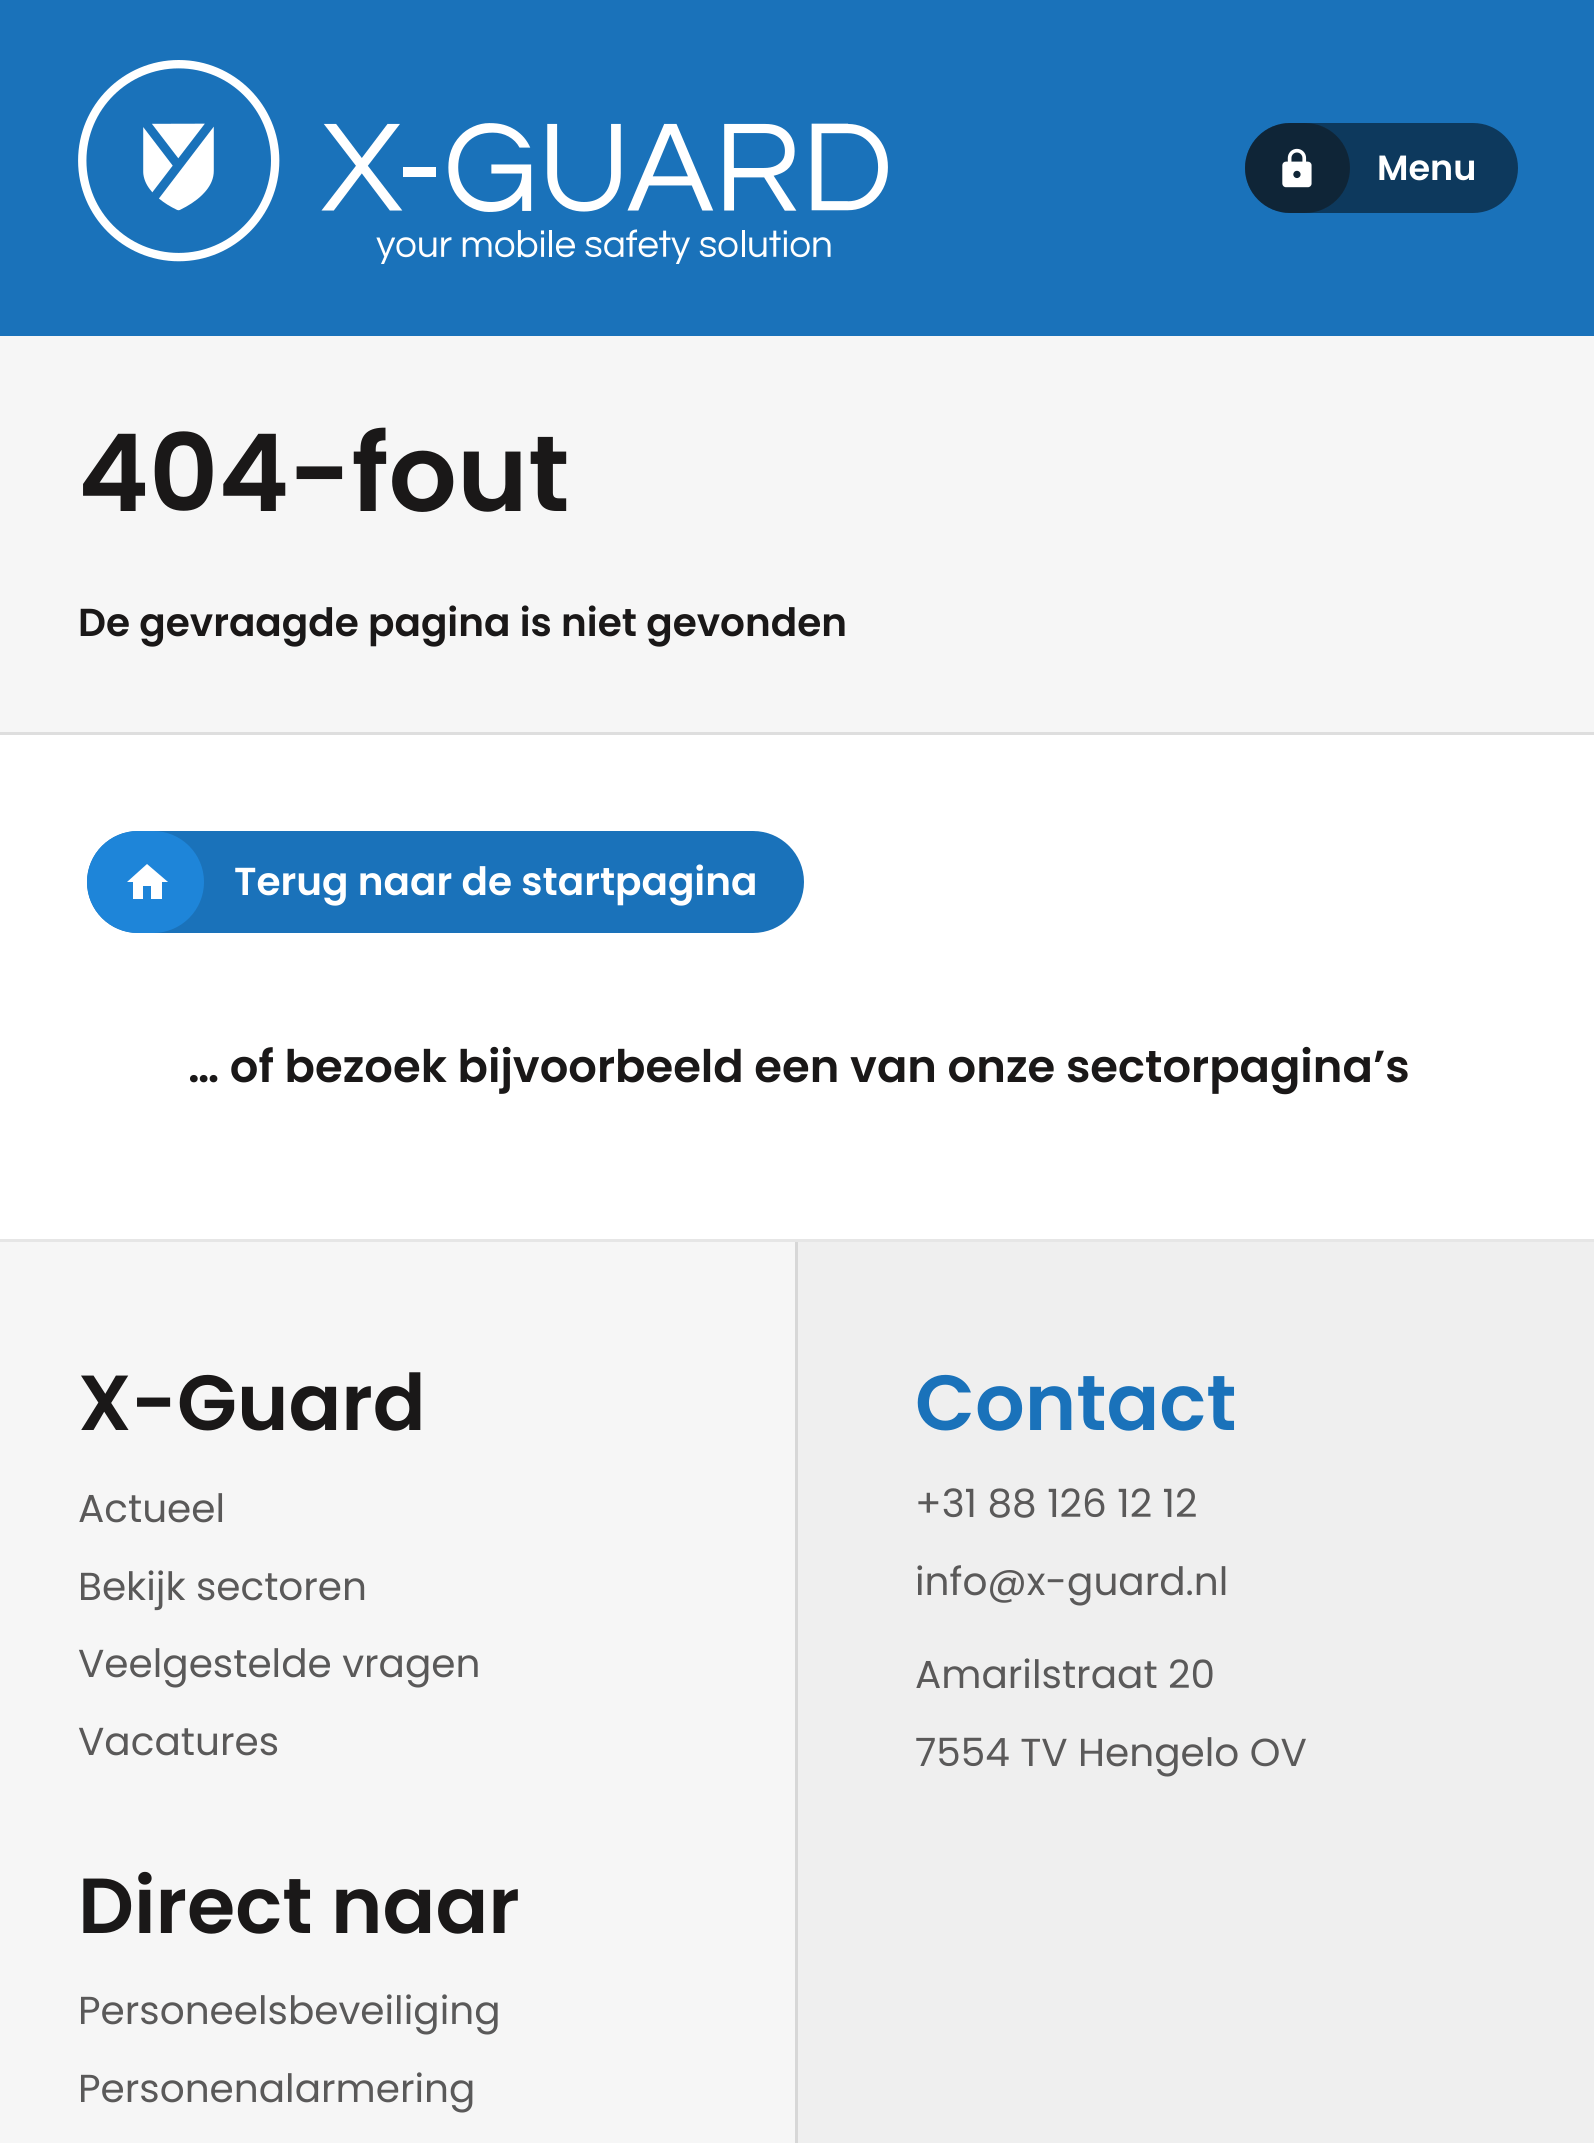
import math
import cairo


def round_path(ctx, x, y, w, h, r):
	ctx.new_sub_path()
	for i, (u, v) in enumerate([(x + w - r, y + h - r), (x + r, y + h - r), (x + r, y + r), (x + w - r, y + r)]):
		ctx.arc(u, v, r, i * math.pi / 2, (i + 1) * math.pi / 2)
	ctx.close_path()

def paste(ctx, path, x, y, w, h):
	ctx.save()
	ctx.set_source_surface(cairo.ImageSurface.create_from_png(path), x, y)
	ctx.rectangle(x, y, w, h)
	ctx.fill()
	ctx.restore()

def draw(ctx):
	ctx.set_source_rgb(1, 1, 1)
	ctx.paint()
	ctx.set_source_rgb(0.102, 0.447, 0.729)
	ctx.rectangle(0, 0, 1594, 336)
	ctx.fill()
	paste(ctx, 'media/1.png', 78, 60, 810, 204)
	ctx.set_source_rgb(0.051, 0.224, 0.365)
	round_path(ctx, 1245, 123, 273, 90, 45)
	ctx.fill()
	ctx.set_source_rgba(0.071, 0.071, 0.071, 0.5)
	round_path(ctx, 1245, 123, 105, 90, 45)
	ctx.fill()
	paste(ctx, 'media/2.png', 1282, 148, 30, 40)
	ctx.select_font_face('Poppins SemiBold')
	ctx.set_font_size(35)
	ctx.set_source_rgb(1, 1, 1)
	ctx.move_to(1377, 180)
	ctx.show_text('Menu')
	ctx.set_source_rgb(0.961, 0.961, 0.961)
	ctx.rectangle(0, 336, 1594, 396)
	ctx.fill()
	ctx.set_source_rgb(0.871, 0.871, 0.871)
	ctx.rectangle(0, 732, 1594, 3)
	ctx.fill()
	ctx.set_font_size(107.25)
	ctx.set_source_rgb(0.102, 0.094, 0.094)
	ctx.move_to(78, 511)
	ctx.show_text('404-fout')
	ctx.set_font_size(39)
	ctx.move_to(78, 636)
	ctx.show_text('De gevraagde pagina is niet gevonden')
	ctx.set_source_rgb(0.102, 0.447, 0.729)
	round_path(ctx, 87, 831, 717, 102, 51)
	ctx.fill()
	ctx.save()
	round_path(ctx, 87, 831, 717, 102, 48)
	ctx.clip()
	ctx.set_source_rgb(0.118, 0.522, 0.851)
	round_path(ctx, 87, 831, 117, 102, 51)
	ctx.fill()
	ctx.restore()
	ctx.set_source_rgb(1, 1, 1)
	ctx.new_path()
	ctx.move_to(143, 899)
	ctx.line_to(143, 886)
	ctx.line_to(151, 886)
	ctx.line_to(151, 899)
	ctx.line_to(162, 899)
	ctx.line_to(162, 882)
	ctx.line_to(168, 882)
	ctx.line_to(147, 864)
	ctx.line_to(127, 882)
	ctx.line_to(133, 882)
	ctx.line_to(133, 899)
	ctx.close_path()
	ctx.fill()
	ctx.move_to(234, 895)
	ctx.show_text('Terug naar de startpagina')
	ctx.set_font_size(44.85)
	ctx.set_source_rgb(0.102, 0.094, 0.094)
	ctx.move_to(188, 1082)
	ctx.show_text('… of bezoek bijvoorbeeld een van onze sectorpagina’s')
	ctx.set_source_rgb(0.902, 0.902, 0.902)
	ctx.rectangle(0, 1239, 1594, 3)
	ctx.fill()
	ctx.set_source_rgb(0.961, 0.961, 0.961)
	ctx.rectangle(0, 1242, 795, 901)
	ctx.fill()
	ctx.set_source_rgb(0.937, 0.937, 0.937)
	ctx.rectangle(798, 1242, 796, 901)
	ctx.fill()
	ctx.set_source_rgb(0.843, 0.843, 0.843)
	ctx.rectangle(795, 1242, 3, 901)
	ctx.fill()
	ctx.set_font_size(78)
	ctx.set_source_rgb(0.102, 0.094, 0.094)
	ctx.move_to(78, 1430)
	ctx.show_text('X-Guard')
	ctx.select_font_face('Poppins')
	ctx.set_font_size(39)
	ctx.set_source_rgb(0.353, 0.349, 0.349)
	for x, y, s in [
		(78, 1522, 'Actueel'),
		(78, 1600, 'Bekijk sectoren'),
		(78, 1677, 'Veelgestelde vragen'),
		(78, 1755, 'Vacatures'),
	]:
		ctx.move_to(x, y)
		ctx.show_text(s)
	ctx.select_font_face('Poppins SemiBold')
	ctx.set_font_size(78)
	ctx.set_source_rgb(0.102, 0.094, 0.094)
	ctx.move_to(78, 1933)
	ctx.show_text('Direct naar')
	ctx.select_font_face('Poppins')
	ctx.set_font_size(39)
	ctx.set_source_rgb(0.353, 0.349, 0.349)
	ctx.move_to(78, 2024)
	ctx.show_text('Personeelsbeveiliging')
	ctx.move_to(78, 2102)
	ctx.show_text('Personenalarmering')
	ctx.select_font_face('Poppins SemiBold')
	ctx.set_font_size(78)
	ctx.set_source_rgb(0.102, 0.447, 0.729)
	ctx.move_to(915, 1430)
	ctx.show_text('Contact')
	ctx.select_font_face('Poppins')
	ctx.set_font_size(39)
	ctx.set_source_rgb(0.353, 0.349, 0.349)
	for x, y, s in [
		(915, 1517, '+31 88 126 12 12'),
		(915, 1595, 'info@x-guard.nl'),
		(915, 1688, 'Amarilstraat 20'),
		(915, 1766, '7554 TV Hengelo OV'),
	]:
		ctx.move_to(x, y)
		ctx.show_text(s)


surface = cairo.ImageSurface(cairo.FORMAT_RGB24, 1594, 2143)
ctx = cairo.Context(surface)
options = cairo.FontOptions()
options.set_hint_metrics(cairo.HINT_METRICS_OFF)
options.set_hint_style(cairo.HINT_STYLE_NONE)
ctx.set_font_options(options)
ctx.set_miter_limit(4)
draw(ctx)
surface.write_to_png('image.png')
